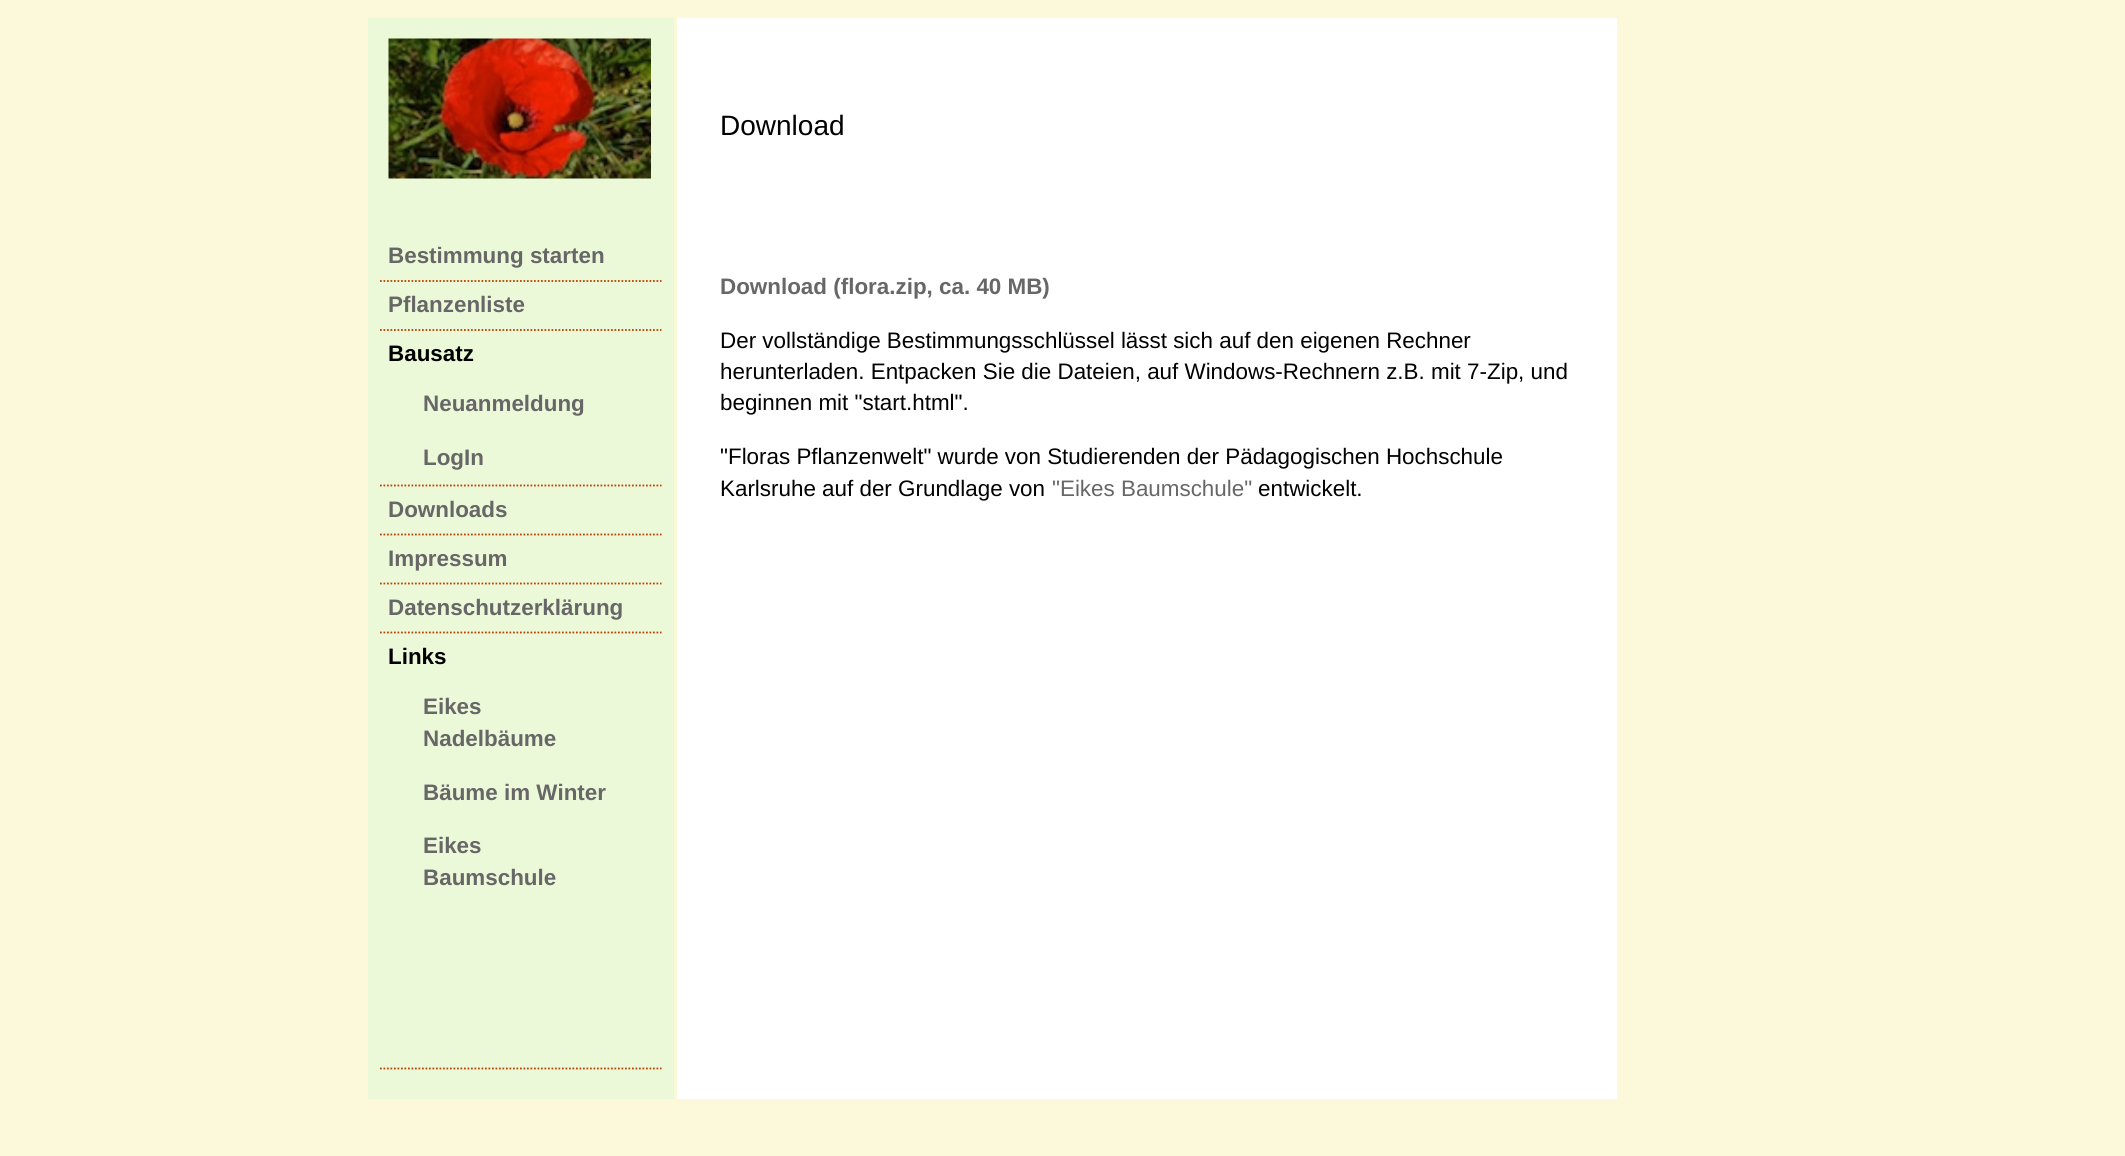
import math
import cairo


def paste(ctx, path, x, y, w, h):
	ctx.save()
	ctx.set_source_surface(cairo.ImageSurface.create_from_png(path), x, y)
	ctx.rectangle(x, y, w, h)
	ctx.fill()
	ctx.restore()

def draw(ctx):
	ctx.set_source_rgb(0.984, 0.976, 0.851)
	ctx.paint()
	ctx.set_source_rgb(0.922, 0.976, 0.851)
	ctx.rectangle(368, 18, 306, 1081)
	ctx.fill()
	paste(ctx, 'media/1.png', 388, 38, 263, 141)
	ctx.select_font_face('Liberation Sans', cairo.FONT_SLANT_NORMAL, cairo.FONT_WEIGHT_BOLD)
	ctx.set_font_size(22.4)
	ctx.set_source_rgb(0.404, 0.404, 0.404)
	ctx.move_to(388, 263)
	ctx.show_text('Bestimmung starten')
	ctx.new_path()
	ctx.move_to(380, 281)
	ctx.line_to(661.5, 281)
	ctx.set_source_rgb(0.753, 0.251, 0)
	ctx.set_line_width(1.8)
	ctx.set_dash([1.75, 1.75])
	ctx.stroke()
	ctx.set_source_rgb(0.404, 0.404, 0.404)
	ctx.move_to(388, 312)
	ctx.show_text('Pflanzenliste')
	ctx.new_path()
	ctx.move_to(380, 330)
	ctx.line_to(661.5, 330)
	ctx.set_source_rgb(0.753, 0.251, 0)
	ctx.stroke()
	ctx.set_source_rgb(0, 0, 0)
	ctx.move_to(388, 361)
	ctx.show_text('Bausatz')
	ctx.set_source_rgb(0.404, 0.404, 0.404)
	ctx.move_to(423, 411)
	ctx.show_text('Neuanmeldung')
	ctx.move_to(423, 465)
	ctx.show_text('LogIn')
	ctx.new_path()
	ctx.move_to(380, 485.5)
	ctx.line_to(661.5, 485.5)
	ctx.set_source_rgb(0.753, 0.251, 0)
	ctx.stroke()
	ctx.set_source_rgb(0.404, 0.404, 0.404)
	ctx.move_to(388, 517)
	ctx.show_text('Downloads')
	ctx.new_path()
	ctx.move_to(380, 534.5)
	ctx.line_to(661.5, 534.5)
	ctx.set_source_rgb(0.753, 0.251, 0)
	ctx.stroke()
	ctx.set_source_rgb(0.404, 0.404, 0.404)
	ctx.move_to(388, 566)
	ctx.show_text('Impressum')
	ctx.new_path()
	ctx.move_to(380, 583.5)
	ctx.line_to(661.5, 583.5)
	ctx.set_source_rgb(0.753, 0.251, 0)
	ctx.stroke()
	ctx.set_source_rgb(0.404, 0.404, 0.404)
	ctx.move_to(388, 615)
	ctx.show_text('Datenschutzerklärung')
	ctx.new_path()
	ctx.move_to(380, 632.5)
	ctx.line_to(661.5, 632.5)
	ctx.set_source_rgb(0.753, 0.251, 0)
	ctx.stroke()
	ctx.set_source_rgb(0, 0, 0)
	ctx.move_to(388, 664)
	ctx.show_text('Links')
	ctx.set_source_rgb(0.404, 0.404, 0.404)
	for x, y, s in [
		(423, 714, 'Eikes'),
		(423, 746, 'Nadelbäume'),
		(423, 800, 'Bäume im Winter'),
		(423, 853, 'Eikes'),
		(423, 885, 'Baumschule'),
	]:
		ctx.move_to(x, y)
		ctx.show_text(s)
	ctx.new_path()
	ctx.move_to(380, 1068.5)
	ctx.line_to(661.5, 1068.5)
	ctx.set_source_rgb(0.753, 0.251, 0)
	ctx.stroke()
	ctx.set_source_rgb(1, 1, 1)
	ctx.rectangle(677, 18, 940, 1081)
	ctx.fill()
	ctx.select_font_face('Liberation Sans')
	ctx.set_font_size(28)
	ctx.set_source_rgb(0, 0, 0)
	ctx.move_to(720, 135)
	ctx.show_text('Download')
	ctx.select_font_face('Liberation Sans', cairo.FONT_SLANT_NORMAL, cairo.FONT_WEIGHT_BOLD)
	ctx.set_font_size(22.4)
	ctx.set_source_rgb(0.404, 0.404, 0.404)
	ctx.move_to(720, 294)
	ctx.show_text('Download (flora.zip, ca. 40 MB)')
	ctx.select_font_face('Liberation Sans')
	ctx.set_source_rgb(0, 0, 0)
	for x, y, s in [
		(720, 348, 'Der vollständige Bestimmungsschlüssel lässt sich auf den eigenen Rechner'),
		(720, 379, 'herunterladen. Entpacken Sie die Dateien, auf Windows-Rechnern z.B. mit 7-Zip, und'),
		(720, 410, 'beginnen mit "start.html".'),
		(720, 464, '"Floras Pflanzenwelt" wurde von Studierenden der Pädagogischen Hochschule'),
		(720, 496, 'Karlsruhe auf der Grundlage von'),
	]:
		ctx.move_to(x, y)
		ctx.show_text(s)
	ctx.set_source_rgb(0.404, 0.404, 0.404)
	ctx.move_to(1052, 496)
	ctx.show_text('"Eikes Baumschule"')
	ctx.set_source_rgb(0, 0, 0)
	ctx.move_to(1258, 496)
	ctx.show_text('entwickelt.')


surface = cairo.ImageSurface(cairo.FORMAT_RGB24, 2125, 1156)
ctx = cairo.Context(surface)
options = cairo.FontOptions()
options.set_hint_metrics(cairo.HINT_METRICS_OFF)
options.set_hint_style(cairo.HINT_STYLE_NONE)
ctx.set_font_options(options)
ctx.set_miter_limit(4)
draw(ctx)
surface.write_to_png('image.png')
